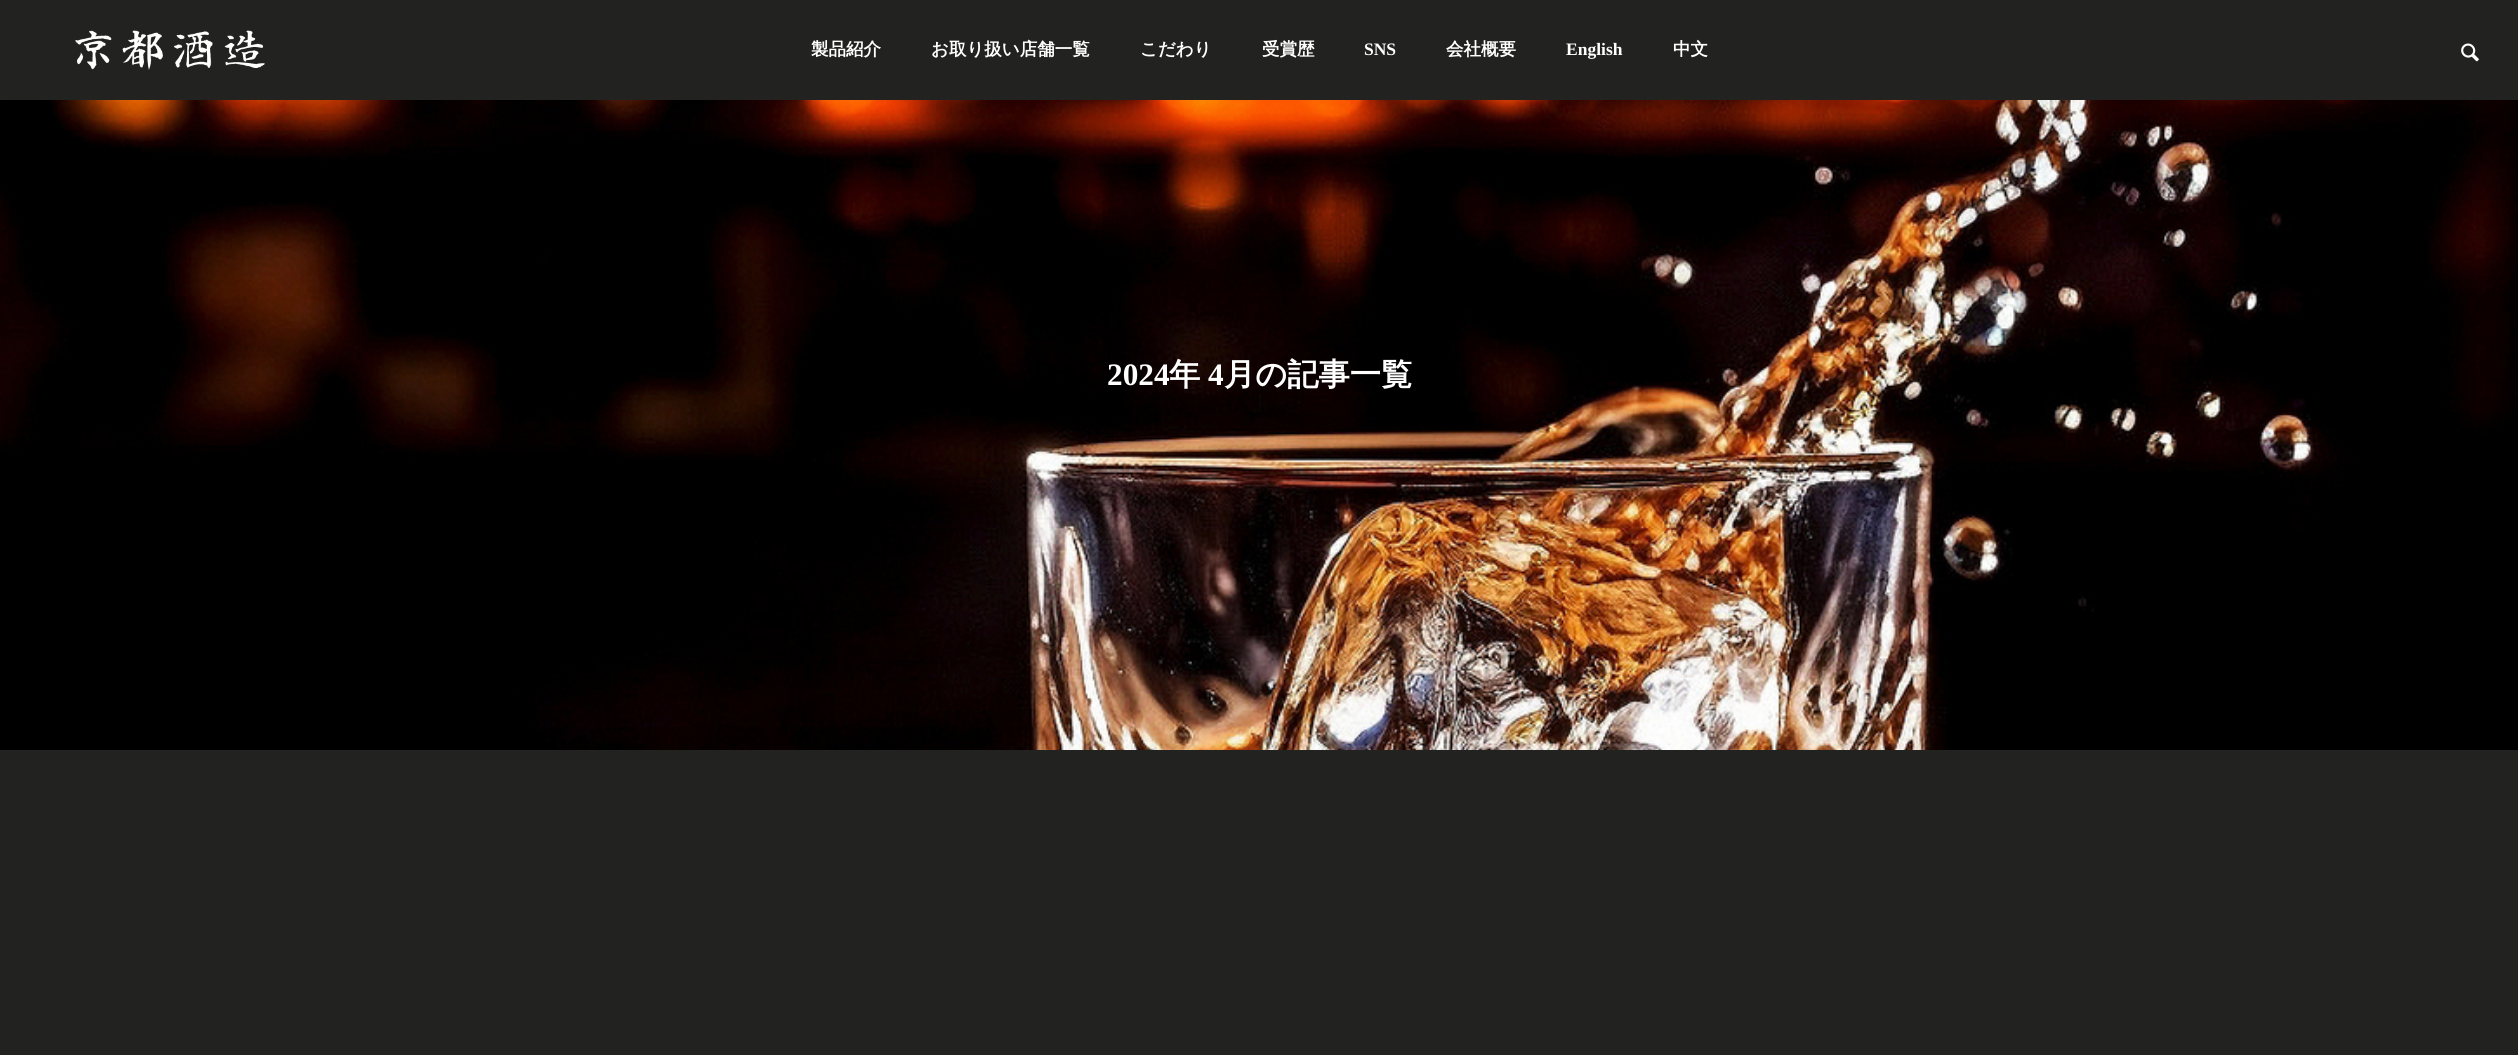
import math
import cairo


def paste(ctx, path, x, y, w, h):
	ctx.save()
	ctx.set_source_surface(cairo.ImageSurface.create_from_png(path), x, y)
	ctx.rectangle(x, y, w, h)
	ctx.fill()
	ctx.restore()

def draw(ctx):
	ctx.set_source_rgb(0.133, 0.137, 0.129)
	ctx.paint()
	paste(ctx, 'media/1.png', 75, 30, 190, 40)
	ctx.select_font_face('WenQuanYi Zen Hei', cairo.FONT_SLANT_NORMAL, cairo.FONT_WEIGHT_BOLD)
	ctx.set_font_size(17.5)
	ctx.set_source_rgb(1, 1, 1)
	for x, y, s in [
		(811, 55, '製品紹介'),
		(931, 55, 'お取り扱い店舗一覧'),
		(1140, 55, 'こだわり'),
		(1262, 55, '受賞歴'),
	]:
		ctx.move_to(x, y)
		ctx.show_text(s)
	ctx.select_font_face('Liberation Serif', cairo.FONT_SLANT_NORMAL, cairo.FONT_WEIGHT_BOLD)
	ctx.move_to(1364, 55)
	ctx.show_text('SNS')
	ctx.select_font_face('WenQuanYi Zen Hei', cairo.FONT_SLANT_NORMAL, cairo.FONT_WEIGHT_BOLD)
	ctx.move_to(1446, 55)
	ctx.show_text('会社概要')
	ctx.select_font_face('Liberation Serif', cairo.FONT_SLANT_NORMAL, cairo.FONT_WEIGHT_BOLD)
	ctx.move_to(1566, 55)
	ctx.show_text('English')
	ctx.select_font_face('WenQuanYi Zen Hei', cairo.FONT_SLANT_NORMAL, cairo.FONT_WEIGHT_BOLD)
	ctx.move_to(1673, 55)
	ctx.show_text('中文')
	paste(ctx, 'media/2.png', 2461, 43, 18, 19)
	paste(ctx, 'media/3.png', 0, 100, 2518, 650)
	ctx.select_font_face('Liberation Serif', cairo.FONT_SLANT_NORMAL, cairo.FONT_WEIGHT_BOLD)
	ctx.set_font_size(31.25)
	ctx.move_to(1107, 385)
	ctx.show_text('2024')
	ctx.select_font_face('WenQuanYi Zen Hei', cairo.FONT_SLANT_NORMAL, cairo.FONT_WEIGHT_BOLD)
	ctx.move_to(1169, 385)
	ctx.show_text('年')
	ctx.select_font_face('Liberation Serif', cairo.FONT_SLANT_NORMAL, cairo.FONT_WEIGHT_BOLD)
	ctx.move_to(1208, 385)
	ctx.show_text('4')
	ctx.select_font_face('WenQuanYi Zen Hei', cairo.FONT_SLANT_NORMAL, cairo.FONT_WEIGHT_BOLD)
	ctx.move_to(1224, 385)
	ctx.show_text('月の記事一覧')


surface = cairo.ImageSurface(cairo.FORMAT_RGB24, 2518, 1055)
ctx = cairo.Context(surface)
options = cairo.FontOptions()
options.set_hint_metrics(cairo.HINT_METRICS_OFF)
options.set_hint_style(cairo.HINT_STYLE_NONE)
ctx.set_font_options(options)
ctx.set_miter_limit(4)
draw(ctx)
surface.write_to_png('image.png')
